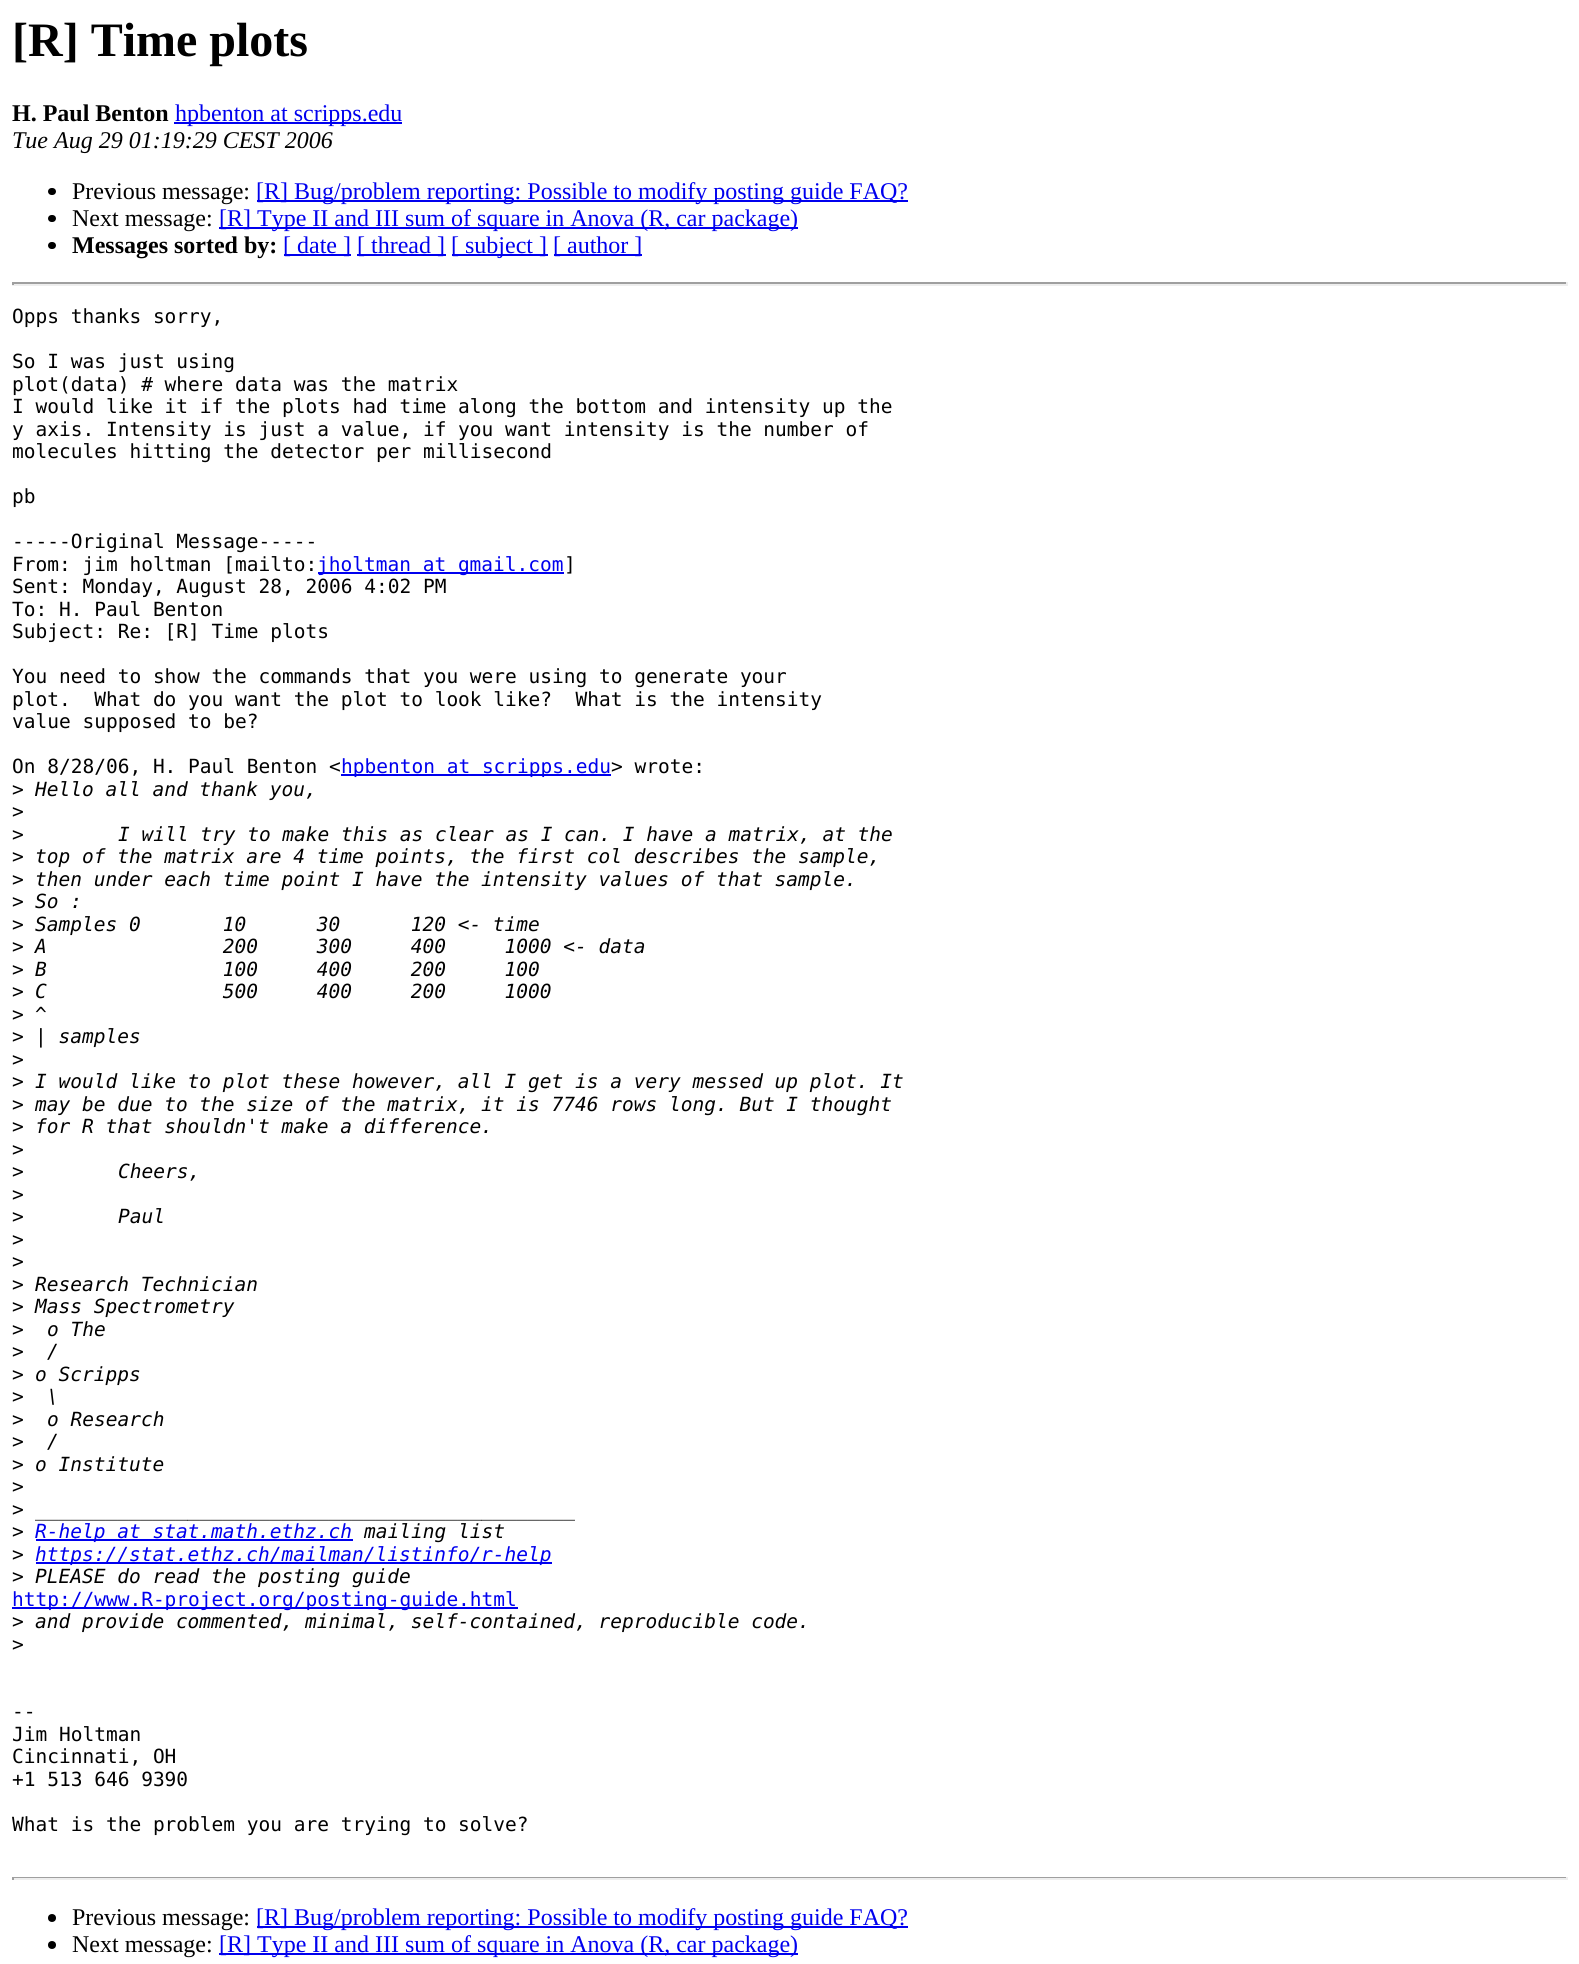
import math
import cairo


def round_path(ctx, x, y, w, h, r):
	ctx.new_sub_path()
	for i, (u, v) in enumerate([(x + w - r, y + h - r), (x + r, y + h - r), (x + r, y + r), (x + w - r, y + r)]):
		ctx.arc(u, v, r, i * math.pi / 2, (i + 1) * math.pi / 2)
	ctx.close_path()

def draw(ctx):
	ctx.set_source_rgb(1, 1, 1)
	ctx.paint()
	ctx.select_font_face('Liberation Serif', cairo.FONT_SLANT_NORMAL, cairo.FONT_WEIGHT_BOLD)
	ctx.set_font_size(48)
	ctx.set_source_rgb(0, 0, 0)
	ctx.move_to(12, 56)
	ctx.show_text('[R] Time plots')
	ctx.set_font_size(24)
	ctx.move_to(12, 121)
	ctx.show_text('H. Paul Benton')
	ctx.set_source_rgb(0, 0, 0.933)
	ctx.rectangle(174, 122, 228, 2)
	ctx.fill()
	ctx.select_font_face('Liberation Serif')
	ctx.move_to(175, 121)
	ctx.show_text('hpbenton at scripps.edu')
	ctx.select_font_face('Liberation Serif', cairo.FONT_SLANT_ITALIC)
	ctx.set_source_rgb(0, 0, 0)
	ctx.move_to(12, 148)
	ctx.show_text('Tue Aug 29 01:19:29 CEST 2006')
	round_path(ctx, 48, 188, 8, 7, 3.5)
	ctx.fill()
	ctx.select_font_face('Liberation Serif')
	ctx.move_to(72, 199)
	ctx.show_text('Previous message:')
	ctx.set_source_rgb(0, 0, 0.933)
	ctx.rectangle(257, 200, 651, 2)
	ctx.fill()
	ctx.move_to(256, 199)
	ctx.show_text('[R] Bug/problem reporting: Possible to modify posting guide FAQ?')
	ctx.set_source_rgb(0, 0, 0)
	round_path(ctx, 48, 215, 8, 7, 3.5)
	ctx.fill()
	ctx.move_to(72, 226)
	ctx.show_text('Next message:')
	ctx.set_source_rgb(0, 0, 0.933)
	ctx.rectangle(219, 227, 579, 2)
	ctx.fill()
	ctx.move_to(219, 226)
	ctx.show_text('[R] Type II and III sum of square in Anova (R, car package)')
	ctx.set_source_rgb(0, 0, 0)
	round_path(ctx, 48, 242, 8, 7, 3.5)
	ctx.fill()
	ctx.select_font_face('Liberation Serif', cairo.FONT_SLANT_NORMAL, cairo.FONT_WEIGHT_BOLD)
	ctx.move_to(72, 253)
	ctx.show_text('Messages sorted by:')
	ctx.set_source_rgb(0, 0, 0.933)
	ctx.rectangle(284, 254, 67, 2)
	ctx.fill()
	ctx.select_font_face('Liberation Serif')
	ctx.move_to(283, 253)
	ctx.show_text('[ date ]')
	ctx.rectangle(357, 254, 89, 2)
	ctx.fill()
	ctx.move_to(357, 253)
	ctx.show_text('[ thread ]')
	ctx.rectangle(452, 254, 96, 2)
	ctx.fill()
	ctx.move_to(451, 253)
	ctx.show_text('[ subject ]')
	ctx.rectangle(554, 254, 88, 2)
	ctx.fill()
	ctx.move_to(553, 253)
	ctx.show_text('[ author ]')
	ctx.set_source_rgb(0.624, 0.624, 0.624)
	ctx.rectangle(12, 282, 1556, 2)
	ctx.fill()
	ctx.set_source_rgb(0.933, 0.933, 0.933)
	ctx.rectangle(1566, 282, 2, 3)
	ctx.rectangle(12, 284, 1556, 2)
	ctx.fill()
	ctx.set_source_rgb(0.624, 0.624, 0.624)
	ctx.rectangle(12, 282, 2, 3)
	ctx.fill()
	ctx.select_font_face('DejaVu Sans Mono')
	ctx.set_font_size(19.5)
	ctx.set_source_rgb(0, 0, 0)
	for x, y, s in [
		(12, 323, 'Opps thanks sorry,'),
		(12, 368, 'So I was just using'),
		(12, 391, 'plot(data) # where data was the matrix'),
		(12, 413, 'I would like it if the plots had time along the bottom and intensity up the'),
		(12, 436, 'y axis. Intensity is just a value, if you want intensity is the number of'),
		(12, 458, 'molecules hitting the detector per millisecond'),
		(12, 503, 'pb'),
		(12, 548, '-----Original Message-----'),
		(12, 571, 'From: jim holtman [mailto:'),
	]:
		ctx.move_to(x, y)
		ctx.show_text(s)
	ctx.set_source_rgb(0, 0, 0.933)
	ctx.rectangle(318, 572, 246, 2)
	ctx.fill()
	ctx.move_to(317, 571)
	ctx.show_text('jholtman at gmail.com')
	ctx.set_source_rgb(0, 0, 0)
	for x, y, s in [
		(564, 571, ']'),
		(12, 593, 'Sent: Monday, August 28, 2006 4:02 PM'),
		(12, 616, 'To: H. Paul Benton'),
		(12, 638, 'Subject: Re: [R] Time plots'),
		(12, 683, 'You need to show the commands that you were using to generate your'),
		(12, 706, 'plot.  What do you want the plot to look like?  What is the intensity'),
		(12, 728, 'value supposed to be?'),
		(12, 773, 'On 8/28/06, H. Paul Benton <'),
	]:
		ctx.move_to(x, y)
		ctx.show_text(s)
	ctx.set_source_rgb(0, 0, 0.933)
	ctx.rectangle(341, 774, 270, 2)
	ctx.fill()
	ctx.move_to(341, 773)
	ctx.show_text('hpbenton at scripps.edu')
	ctx.set_source_rgb(0, 0, 0)
	ctx.move_to(611, 773)
	ctx.show_text('> wrote:')
	ctx.move_to(12, 796)
	ctx.show_text('>')
	ctx.select_font_face('DejaVu Sans Mono', cairo.FONT_SLANT_ITALIC)
	ctx.move_to(35, 796)
	ctx.show_text('Hello all and thank you,')
	ctx.select_font_face('DejaVu Sans Mono')
	ctx.move_to(12, 818)
	ctx.show_text('>')
	ctx.move_to(12, 841)
	ctx.show_text('>')
	ctx.select_font_face('DejaVu Sans Mono', cairo.FONT_SLANT_ITALIC)
	ctx.move_to(118, 841)
	ctx.show_text('I will try to make this as clear as I can. I have a matrix, at the')
	ctx.select_font_face('DejaVu Sans Mono')
	ctx.move_to(12, 863)
	ctx.show_text('>')
	ctx.select_font_face('DejaVu Sans Mono', cairo.FONT_SLANT_ITALIC)
	ctx.move_to(35, 863)
	ctx.show_text('top of the matrix are 4 time points, the first col describes the sample,')
	ctx.select_font_face('DejaVu Sans Mono')
	ctx.move_to(12, 886)
	ctx.show_text('>')
	ctx.select_font_face('DejaVu Sans Mono', cairo.FONT_SLANT_ITALIC)
	ctx.move_to(35, 886)
	ctx.show_text('then under each time point I have the intensity values of that sample.')
	ctx.select_font_face('DejaVu Sans Mono')
	ctx.move_to(12, 908)
	ctx.show_text('>')
	ctx.select_font_face('DejaVu Sans Mono', cairo.FONT_SLANT_ITALIC)
	ctx.move_to(35, 908)
	ctx.show_text('So :')
	ctx.select_font_face('DejaVu Sans Mono')
	ctx.move_to(12, 931)
	ctx.show_text('>')
	ctx.select_font_face('DejaVu Sans Mono', cairo.FONT_SLANT_ITALIC)
	ctx.move_to(35, 931)
	ctx.show_text('Samples 0       10      30      120 <- time')
	ctx.select_font_face('DejaVu Sans Mono')
	ctx.move_to(12, 953)
	ctx.show_text('>')
	ctx.select_font_face('DejaVu Sans Mono', cairo.FONT_SLANT_ITALIC)
	ctx.move_to(35, 953)
	ctx.show_text('A               200     300     400     1000 <- data')
	ctx.select_font_face('DejaVu Sans Mono')
	ctx.move_to(12, 976)
	ctx.show_text('>')
	ctx.select_font_face('DejaVu Sans Mono', cairo.FONT_SLANT_ITALIC)
	ctx.move_to(35, 976)
	ctx.show_text('B               100     400     200     100')
	ctx.select_font_face('DejaVu Sans Mono')
	ctx.move_to(12, 998)
	ctx.show_text('>')
	ctx.select_font_face('DejaVu Sans Mono', cairo.FONT_SLANT_ITALIC)
	ctx.move_to(35, 998)
	ctx.show_text('C               500     400     200     1000')
	ctx.select_font_face('DejaVu Sans Mono')
	ctx.move_to(12, 1021)
	ctx.show_text('>')
	ctx.select_font_face('DejaVu Sans Mono', cairo.FONT_SLANT_ITALIC)
	ctx.move_to(35, 1021)
	ctx.show_text('^')
	ctx.select_font_face('DejaVu Sans Mono')
	ctx.move_to(12, 1043)
	ctx.show_text('>')
	ctx.select_font_face('DejaVu Sans Mono', cairo.FONT_SLANT_ITALIC)
	ctx.move_to(35, 1043)
	ctx.show_text('| samples')
	ctx.select_font_face('DejaVu Sans Mono')
	ctx.move_to(12, 1066)
	ctx.show_text('>')
	ctx.move_to(12, 1088)
	ctx.show_text('>')
	ctx.select_font_face('DejaVu Sans Mono', cairo.FONT_SLANT_ITALIC)
	ctx.move_to(35, 1088)
	ctx.show_text('I would like to plot these however, all I get is a very messed up plot. It')
	ctx.select_font_face('DejaVu Sans Mono')
	ctx.move_to(12, 1111)
	ctx.show_text('>')
	ctx.select_font_face('DejaVu Sans Mono', cairo.FONT_SLANT_ITALIC)
	ctx.move_to(35, 1111)
	ctx.show_text('may be due to the size of the matrix, it is 7746 rows long. But I thought')
	ctx.select_font_face('DejaVu Sans Mono')
	ctx.move_to(12, 1133)
	ctx.show_text('>')
	ctx.select_font_face('DejaVu Sans Mono', cairo.FONT_SLANT_ITALIC)
	ctx.move_to(35, 1133)
	ctx.show_text('for R that shouldn\'t make a difference.')
	ctx.select_font_face('DejaVu Sans Mono')
	ctx.move_to(12, 1156)
	ctx.show_text('>')
	ctx.move_to(12, 1178)
	ctx.show_text('>')
	ctx.select_font_face('DejaVu Sans Mono', cairo.FONT_SLANT_ITALIC)
	ctx.move_to(118, 1178)
	ctx.show_text('Cheers,')
	ctx.select_font_face('DejaVu Sans Mono')
	ctx.move_to(12, 1201)
	ctx.show_text('>')
	ctx.move_to(12, 1223)
	ctx.show_text('>')
	ctx.select_font_face('DejaVu Sans Mono', cairo.FONT_SLANT_ITALIC)
	ctx.move_to(118, 1223)
	ctx.show_text('Paul')
	ctx.select_font_face('DejaVu Sans Mono')
	for x, y, s in [
		(12, 1246, '>'),
		(12, 1268, '>'),
		(12, 1291, '>'),
	]:
		ctx.move_to(x, y)
		ctx.show_text(s)
	ctx.select_font_face('DejaVu Sans Mono', cairo.FONT_SLANT_ITALIC)
	ctx.move_to(35, 1291)
	ctx.show_text('Research Technician')
	ctx.select_font_face('DejaVu Sans Mono')
	ctx.move_to(12, 1313)
	ctx.show_text('>')
	ctx.select_font_face('DejaVu Sans Mono', cairo.FONT_SLANT_ITALIC)
	ctx.move_to(35, 1313)
	ctx.show_text('Mass Spectrometry')
	ctx.select_font_face('DejaVu Sans Mono')
	ctx.move_to(12, 1336)
	ctx.show_text('>')
	ctx.select_font_face('DejaVu Sans Mono', cairo.FONT_SLANT_ITALIC)
	ctx.move_to(47, 1336)
	ctx.show_text('o The')
	ctx.select_font_face('DejaVu Sans Mono')
	ctx.move_to(12, 1358)
	ctx.show_text('>')
	ctx.select_font_face('DejaVu Sans Mono', cairo.FONT_SLANT_ITALIC)
	ctx.move_to(47, 1358)
	ctx.show_text('/')
	ctx.select_font_face('DejaVu Sans Mono')
	ctx.move_to(12, 1381)
	ctx.show_text('>')
	ctx.select_font_face('DejaVu Sans Mono', cairo.FONT_SLANT_ITALIC)
	ctx.move_to(35, 1381)
	ctx.show_text('o Scripps')
	ctx.select_font_face('DejaVu Sans Mono')
	ctx.move_to(12, 1403)
	ctx.show_text('>')
	ctx.select_font_face('DejaVu Sans Mono', cairo.FONT_SLANT_ITALIC)
	ctx.move_to(47, 1403)
	ctx.show_text('\\')
	ctx.select_font_face('DejaVu Sans Mono')
	ctx.move_to(12, 1426)
	ctx.show_text('>')
	ctx.select_font_face('DejaVu Sans Mono', cairo.FONT_SLANT_ITALIC)
	ctx.move_to(47, 1426)
	ctx.show_text('o Research')
	ctx.select_font_face('DejaVu Sans Mono')
	ctx.move_to(12, 1448)
	ctx.show_text('>')
	ctx.select_font_face('DejaVu Sans Mono', cairo.FONT_SLANT_ITALIC)
	ctx.move_to(47, 1448)
	ctx.show_text('/')
	ctx.select_font_face('DejaVu Sans Mono')
	ctx.move_to(12, 1471)
	ctx.show_text('>')
	ctx.select_font_face('DejaVu Sans Mono', cairo.FONT_SLANT_ITALIC)
	ctx.move_to(35, 1471)
	ctx.show_text('o Institute')
	ctx.select_font_face('DejaVu Sans Mono')
	ctx.move_to(12, 1493)
	ctx.show_text('>')
	ctx.move_to(12, 1516)
	ctx.show_text('>')
	ctx.select_font_face('DejaVu Sans Mono', cairo.FONT_SLANT_ITALIC)
	ctx.move_to(35, 1516)
	ctx.show_text('______________________________________________')
	ctx.select_font_face('DejaVu Sans Mono')
	ctx.move_to(12, 1538)
	ctx.show_text('>')
	ctx.set_source_rgb(0, 0, 0.933)
	ctx.rectangle(36, 1539, 317, 2)
	ctx.fill()
	ctx.select_font_face('DejaVu Sans Mono', cairo.FONT_SLANT_ITALIC)
	ctx.move_to(35, 1538)
	ctx.show_text('R-help at stat.math.ethz.ch')
	ctx.set_source_rgb(0, 0, 0)
	ctx.move_to(364, 1538)
	ctx.show_text('mailing list')
	ctx.select_font_face('DejaVu Sans Mono')
	ctx.move_to(12, 1561)
	ctx.show_text('>')
	ctx.set_source_rgb(0, 0, 0.933)
	ctx.rectangle(36, 1562, 516, 2)
	ctx.fill()
	ctx.select_font_face('DejaVu Sans Mono', cairo.FONT_SLANT_ITALIC)
	ctx.move_to(35, 1561)
	ctx.show_text('https://stat.ethz.ch/mailman/listinfo/r-help')
	ctx.select_font_face('DejaVu Sans Mono')
	ctx.set_source_rgb(0, 0, 0)
	ctx.move_to(12, 1583)
	ctx.show_text('>')
	ctx.select_font_face('DejaVu Sans Mono', cairo.FONT_SLANT_ITALIC)
	ctx.move_to(35, 1583)
	ctx.show_text('PLEASE do read the posting guide')
	ctx.set_source_rgb(0, 0, 0.933)
	ctx.rectangle(12, 1607, 506, 2)
	ctx.fill()
	ctx.select_font_face('DejaVu Sans Mono')
	ctx.move_to(12, 1606)
	ctx.show_text('http://www.R-project.org/posting-guide.html')
	ctx.set_source_rgb(0, 0, 0)
	ctx.move_to(12, 1628)
	ctx.show_text('>')
	ctx.select_font_face('DejaVu Sans Mono', cairo.FONT_SLANT_ITALIC)
	ctx.move_to(35, 1628)
	ctx.show_text('and provide commented, minimal, self-contained, reproducible code.')
	ctx.select_font_face('DejaVu Sans Mono')
	for x, y, s in [
		(12, 1651, '>'),
		(12, 1718, '--'),
		(12, 1741, 'Jim Holtman'),
		(12, 1763, 'Cincinnati, OH'),
		(12, 1786, '+1 513 646 9390'),
		(12, 1831, 'What is the problem you are trying to solve?'),
	]:
		ctx.move_to(x, y)
		ctx.show_text(s)
	ctx.set_source_rgb(0.624, 0.624, 0.624)
	ctx.rectangle(12, 1877, 1556, 1)
	ctx.fill()
	ctx.set_source_rgb(0.933, 0.933, 0.933)
	ctx.rectangle(1566, 1877, 2, 3)
	ctx.rectangle(12, 1878, 1556, 2)
	ctx.fill()
	ctx.set_source_rgb(0.624, 0.624, 0.624)
	ctx.rectangle(12, 1877, 2, 3)
	ctx.fill()
	ctx.set_source_rgb(0, 0, 0)
	ctx.arc(52, 1918, 4, 0, 2 * math.pi)
	ctx.fill()
	ctx.select_font_face('Liberation Serif')
	ctx.set_font_size(24)
	ctx.move_to(72, 1925)
	ctx.show_text('Previous message:')
	ctx.set_source_rgb(0, 0, 0.933)
	ctx.rectangle(257, 1926, 651, 2)
	ctx.fill()
	ctx.move_to(256, 1925)
	ctx.show_text('[R] Bug/problem reporting: Possible to modify posting guide FAQ?')
	ctx.set_source_rgb(0, 0, 0)
	ctx.new_path()
	ctx.arc(52, 1945, 4, 0, 2 * math.pi)
	ctx.fill()
	ctx.move_to(72, 1952)
	ctx.show_text('Next message:')
	ctx.set_source_rgb(0, 0, 0.933)
	ctx.rectangle(219, 1953, 579, 2)
	ctx.fill()
	ctx.move_to(219, 1952)
	ctx.show_text('[R] Type II and III sum of square in Anova (R, car package)')


surface = cairo.ImageSurface(cairo.FORMAT_RGB24, 1579, 1964)
ctx = cairo.Context(surface)
options = cairo.FontOptions()
options.set_hint_metrics(cairo.HINT_METRICS_OFF)
options.set_hint_style(cairo.HINT_STYLE_NONE)
ctx.set_font_options(options)
ctx.set_miter_limit(4)
draw(ctx)
surface.write_to_png('image.png')
